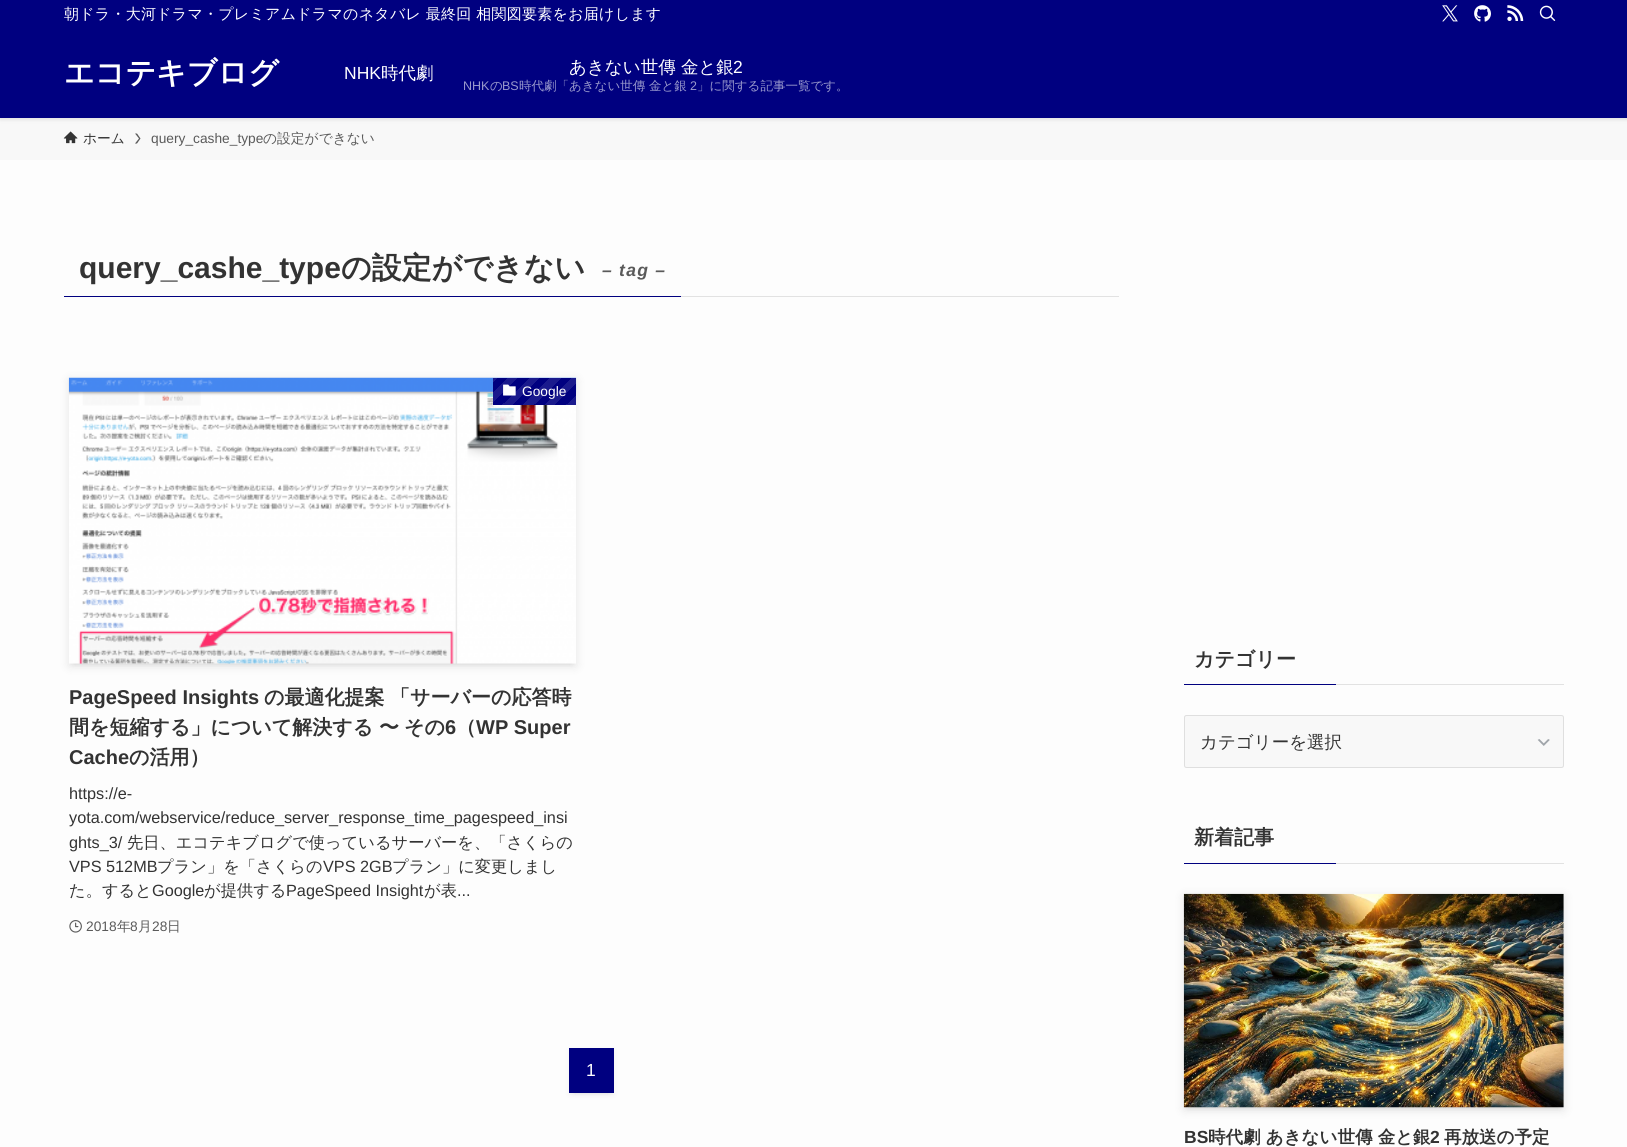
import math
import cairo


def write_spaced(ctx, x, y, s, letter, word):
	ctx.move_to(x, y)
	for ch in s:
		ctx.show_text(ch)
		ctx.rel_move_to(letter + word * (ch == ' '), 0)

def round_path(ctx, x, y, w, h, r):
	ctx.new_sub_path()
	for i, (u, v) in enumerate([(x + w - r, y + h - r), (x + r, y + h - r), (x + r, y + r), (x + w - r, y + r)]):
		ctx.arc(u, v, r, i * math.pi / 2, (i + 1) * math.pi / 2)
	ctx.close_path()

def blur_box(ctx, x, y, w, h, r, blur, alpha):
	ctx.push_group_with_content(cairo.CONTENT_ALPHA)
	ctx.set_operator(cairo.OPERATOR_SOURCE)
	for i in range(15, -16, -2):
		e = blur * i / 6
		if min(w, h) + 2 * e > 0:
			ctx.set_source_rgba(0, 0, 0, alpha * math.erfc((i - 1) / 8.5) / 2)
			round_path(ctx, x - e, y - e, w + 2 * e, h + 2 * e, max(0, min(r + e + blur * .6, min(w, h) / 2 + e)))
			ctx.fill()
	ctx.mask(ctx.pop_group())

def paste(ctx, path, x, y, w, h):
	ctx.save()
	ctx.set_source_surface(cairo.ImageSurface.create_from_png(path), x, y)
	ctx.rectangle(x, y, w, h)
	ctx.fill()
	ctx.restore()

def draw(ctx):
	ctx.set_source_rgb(0.992, 0.992, 0.992)
	ctx.paint()
	ctx.set_source_rgb(0.969, 0.969, 0.969)
	ctx.rectangle(0, 118, 1627, 42)
	ctx.fill()
	ctx.set_source_rgb(0, 0, 0)
	blur_box(ctx, 0, 1, 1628, 118, 0, 2.5, 0.12)
	ctx.set_source_rgb(0, 0, 0.502)
	ctx.rectangle(0, 0, 1627, 118)
	ctx.fill()
	ctx.select_font_face('WenQuanYi Zen Hei Medium')
	ctx.set_font_size(15)
	ctx.set_source_rgb(1, 1, 1)
	write_spaced(ctx, 64, 19, '朝ドラ・大河ドラマ・プレミアムドラマのネタバレ 最終回 相関図要素をお届けします', 0.25, 0)
	paste(ctx, 'media/1.png', 1442, 5, 16, 17)
	paste(ctx, 'media/2.png', 1474, 5, 17, 17)
	paste(ctx, 'media/3.png', 1507, 5, 17, 16)
	paste(ctx, 'media/4.png', 1539, 5, 17, 16)
	ctx.select_font_face('WenQuanYi Zen Hei', cairo.FONT_SLANT_NORMAL, cairo.FONT_WEIGHT_BOLD)
	ctx.set_font_size(30)
	ctx.move_to(64, 83)
	ctx.show_text('エコテキブログ')
	ctx.select_font_face('Liberation Sans')
	ctx.set_font_size(17.5)
	ctx.move_to(344, 79)
	ctx.show_text('NHK')
	ctx.select_font_face('WenQuanYi Zen Hei Medium')
	ctx.move_to(381, 79)
	ctx.show_text('時代劇')
	ctx.move_to(569, 73)
	ctx.show_text('あきない世傳 金と銀')
	ctx.select_font_face('Liberation Sans')
	ctx.move_to(733, 73)
	ctx.show_text('2')
	ctx.set_font_size(12.5)
	ctx.set_source_rgb(0.6, 0.6, 0.8)
	ctx.move_to(463, 90)
	ctx.show_text('NHK')
	ctx.select_font_face('WenQuanYi Zen Hei Medium')
	ctx.move_to(490, 90)
	ctx.show_text('の')
	ctx.select_font_face('Liberation Sans')
	ctx.move_to(502, 90)
	ctx.show_text('BS')
	ctx.select_font_face('WenQuanYi Zen Hei Medium')
	ctx.move_to(519, 90)
	ctx.show_text('時代劇「あきない世傳 金と銀')
	ctx.select_font_face('Liberation Sans')
	ctx.move_to(690, 90)
	ctx.show_text('2')
	ctx.select_font_face('WenQuanYi Zen Hei Medium')
	ctx.move_to(697, 90)
	ctx.show_text('」に関する記事一覧です。')
	paste(ctx, 'media/5.png', 63, 131, 15, 13)
	ctx.set_font_size(13.75)
	ctx.set_source_rgb(0.2, 0.2, 0.2)
	ctx.move_to(83, 143)
	ctx.show_text('ホーム')
	ctx.set_source_rgb(0.353, 0.353, 0.353)
	ctx.new_path()
	ctx.move_to(137, 133.5)
	ctx.line_to(135, 133.5)
	ctx.line_to(139, 138.5)
	ctx.line_to(135, 143.5)
	ctx.line_to(137, 143.5)
	ctx.line_to(140.5, 138.5)
	ctx.close_path()
	ctx.fill()
	ctx.select_font_face('Liberation Sans')
	ctx.move_to(151, 143)
	ctx.show_text('query_cashe_type')
	ctx.select_font_face('WenQuanYi Zen Hei Medium')
	ctx.move_to(263, 143)
	ctx.show_text('の設定ができない')
	ctx.set_source_rgb(0.886, 0.886, 0.886)
	ctx.rectangle(681, 296, 438, 1)
	ctx.fill()
	ctx.set_source_rgb(0, 0, 0.502)
	ctx.rectangle(64, 296, 617, 1)
	ctx.fill()
	ctx.select_font_face('Liberation Sans', cairo.FONT_SLANT_NORMAL, cairo.FONT_WEIGHT_BOLD)
	ctx.set_font_size(30)
	ctx.set_source_rgb(0.2, 0.2, 0.2)
	ctx.move_to(79, 278)
	ctx.show_text('query_cashe_type')
	ctx.select_font_face('WenQuanYi Zen Hei', cairo.FONT_SLANT_NORMAL, cairo.FONT_WEIGHT_BOLD)
	ctx.move_to(341, 278)
	ctx.show_text('の設定ができない')
	ctx.select_font_face('Liberation Sans', cairo.FONT_SLANT_ITALIC, cairo.FONT_WEIGHT_BOLD)
	ctx.set_font_size(17.5)
	ctx.set_source_rgb(0.353, 0.353, 0.353)
	write_spaced(ctx, 602, 276, '– tag –', 1.25, 0)
	ctx.set_source_rgb(0, 0, 0)
	blur_box(ctx, 74, 388, 497, 276, 0, 2.5, 0.1)
	blur_box(ctx, 69, 380, 507, 286, 0, 5, 0.1)
	paste(ctx, 'media/6.png', 68, 377, 509, 287)
	gradient = cairo.LinearGradient(562, 419, 499, 355)
	gradient.add_color_stop_rgba(0, 0.102, 0.102, 0.553, 1)
	gradient.add_color_stop_rgba(0.08, 0.102, 0.102, 0.553, 1)
	gradient.add_color_stop_rgba(0.08, 0, 0, 0.502, 1)
	gradient.add_color_stop_rgba(0.17, 0, 0, 0.502, 1)
	gradient.add_color_stop_rgba(0.17, 0.102, 0.102, 0.553, 1)
	gradient.add_color_stop_rgba(0.25, 0.102, 0.102, 0.553, 1)
	gradient.add_color_stop_rgba(0.25, 0, 0, 0.502, 1)
	gradient.add_color_stop_rgba(0.33, 0, 0, 0.502, 1)
	gradient.add_color_stop_rgba(0.33, 0.102, 0.102, 0.553, 1)
	gradient.add_color_stop_rgba(0.42, 0.102, 0.102, 0.553, 1)
	gradient.add_color_stop_rgba(0.42, 0, 0, 0.502, 1)
	gradient.add_color_stop_rgba(0.5, 0, 0, 0.502, 1)
	gradient.add_color_stop_rgba(0.5, 0.102, 0.102, 0.553, 1)
	gradient.add_color_stop_rgba(0.58, 0.102, 0.102, 0.553, 1)
	gradient.add_color_stop_rgba(0.58, 0, 0, 0.502, 1)
	gradient.add_color_stop_rgba(0.67, 0, 0, 0.502, 1)
	gradient.add_color_stop_rgba(0.67, 0.102, 0.102, 0.553, 1)
	gradient.add_color_stop_rgba(0.75, 0.102, 0.102, 0.553, 1)
	gradient.add_color_stop_rgba(0.75, 0, 0, 0.502, 1)
	gradient.add_color_stop_rgba(0.83, 0, 0, 0.502, 1)
	gradient.add_color_stop_rgba(0.83, 0.102, 0.102, 0.553, 1)
	gradient.add_color_stop_rgba(0.92, 0.102, 0.102, 0.553, 1)
	gradient.add_color_stop_rgba(0.92, 0, 0, 0.502, 1)
	gradient.add_color_stop_rgba(1, 0, 0, 0.502, 1)
	ctx.set_source(gradient)
	ctx.rectangle(493, 378, 83, 27)
	ctx.fill()
	paste(ctx, 'media/7.png', 503, 384, 13, 12)
	ctx.select_font_face('Liberation Sans')
	ctx.set_font_size(13.75)
	ctx.set_source_rgb(1, 1, 1)
	ctx.move_to(522, 396)
	ctx.show_text('Google')
	ctx.select_font_face('Liberation Sans', cairo.FONT_SLANT_NORMAL, cairo.FONT_WEIGHT_BOLD)
	ctx.set_font_size(20)
	ctx.set_source_rgb(0.2, 0.2, 0.2)
	ctx.move_to(69, 704)
	ctx.show_text('PageSpeed Insights')
	ctx.select_font_face('WenQuanYi Zen Hei', cairo.FONT_SLANT_NORMAL, cairo.FONT_WEIGHT_BOLD)
	for x, y, s in [
		(264, 704, 'の最適化提案'),
		(390, 704, '「サーバーの応答時'),
		(69, 734, '間を短縮する」について解決する'),
		(379, 734, '〜'),
		(404, 734, 'その'),
	]:
		ctx.move_to(x, y)
		ctx.show_text(s)
	ctx.select_font_face('Liberation Sans', cairo.FONT_SLANT_NORMAL, cairo.FONT_WEIGHT_BOLD)
	ctx.move_to(445, 734)
	ctx.show_text('6')
	ctx.select_font_face('WenQuanYi Zen Hei', cairo.FONT_SLANT_NORMAL, cairo.FONT_WEIGHT_BOLD)
	ctx.move_to(456, 734)
	ctx.show_text('（')
	ctx.select_font_face('Liberation Sans', cairo.FONT_SLANT_NORMAL, cairo.FONT_WEIGHT_BOLD)
	ctx.move_to(476, 734)
	ctx.show_text('WP Super')
	ctx.move_to(69, 764)
	ctx.show_text('Cache')
	ctx.select_font_face('WenQuanYi Zen Hei', cairo.FONT_SLANT_NORMAL, cairo.FONT_WEIGHT_BOLD)
	ctx.move_to(129, 764)
	ctx.show_text('の活用）')
	ctx.select_font_face('Liberation Sans')
	ctx.set_font_size(16.25)
	for x, y, s in [
		(69, 799, 'https://e-'),
		(69, 823, 'yota.com/webservice/reduce_server_response_time_pagespeed_insi'),
		(69, 848, 'ghts_3/'),
	]:
		ctx.move_to(x, y)
		ctx.show_text(s)
	ctx.select_font_face('WenQuanYi Zen Hei Medium')
	ctx.move_to(127, 848)
	ctx.show_text('先日、エコテキブログで使っているサーバーを、「さくらの')
	ctx.select_font_face('Liberation Sans')
	ctx.move_to(69, 872)
	ctx.show_text('VPS 512MB')
	ctx.select_font_face('WenQuanYi Zen Hei Medium')
	ctx.move_to(157, 872)
	ctx.show_text('プラン」を「さくらの')
	ctx.select_font_face('Liberation Sans')
	ctx.move_to(323, 872)
	ctx.show_text('VPS 2GB')
	ctx.select_font_face('WenQuanYi Zen Hei Medium')
	ctx.move_to(392, 872)
	ctx.show_text('プラン」に変更しまし')
	ctx.move_to(69, 896)
	ctx.show_text('た。すると')
	ctx.select_font_face('Liberation Sans')
	ctx.move_to(152, 896)
	ctx.show_text('Google')
	ctx.select_font_face('WenQuanYi Zen Hei Medium')
	ctx.move_to(204, 896)
	ctx.show_text('が提供する')
	ctx.select_font_face('Liberation Sans')
	ctx.move_to(286, 896)
	ctx.show_text('PageSpeed Insight')
	ctx.select_font_face('WenQuanYi Zen Hei Medium')
	ctx.move_to(424, 896)
	ctx.show_text('が表')
	ctx.select_font_face('Liberation Sans')
	ctx.move_to(457, 896)
	ctx.show_text('...')
	paste(ctx, 'media/8.png', 69, 920, 13, 13)
	ctx.set_font_size(13.75)
	ctx.set_source_rgb(0.353, 0.353, 0.353)
	ctx.move_to(86, 931)
	ctx.show_text('2018')
	ctx.select_font_face('WenQuanYi Zen Hei Medium')
	ctx.move_to(117, 931)
	ctx.show_text('年')
	ctx.select_font_face('Liberation Sans')
	ctx.move_to(130, 931)
	ctx.show_text('8')
	ctx.select_font_face('WenQuanYi Zen Hei Medium')
	ctx.move_to(138, 931)
	ctx.show_text('月')
	ctx.select_font_face('Liberation Sans')
	ctx.move_to(152, 931)
	ctx.show_text('28')
	ctx.select_font_face('WenQuanYi Zen Hei Medium')
	ctx.move_to(167, 931)
	ctx.show_text('日')
	ctx.set_source_rgb(0, 0, 0)
	blur_box(ctx, 574, 1058, 35, 35, 0, 2.5, 0.1)
	blur_box(ctx, 569, 1050, 45, 45, 0, 2.5, 0.05)
	ctx.set_source_rgb(0, 0, 0.502)
	ctx.rectangle(569, 1048, 45, 45)
	ctx.fill()
	ctx.select_font_face('Liberation Sans')
	ctx.set_font_size(17.5)
	ctx.set_source_rgb(1, 1, 1)
	ctx.move_to(586, 1076)
	ctx.show_text('1')
	ctx.select_font_face('WenQuanYi Zen Hei', cairo.FONT_SLANT_NORMAL, cairo.FONT_WEIGHT_BOLD)
	ctx.set_font_size(20)
	ctx.set_source_rgb(0.2, 0.2, 0.2)
	ctx.move_to(1194, 666)
	ctx.show_text('カテゴリー')
	ctx.set_source_rgb(0, 0, 0.502)
	ctx.rectangle(1184, 684, 152, 1)
	ctx.fill()
	ctx.set_source_rgb(0.886, 0.886, 0.886)
	ctx.rectangle(1336, 684, 228, 1)
	ctx.fill()
	ctx.set_source_rgb(0.969, 0.969, 0.969)
	round_path(ctx, 1184, 715, 380, 53, 2.5)
	ctx.fill()
	paste(ctx, 'media/9.png', 1537, 739, 13, 7)
	round_path(ctx, 1184.5, 715.5, 379, 52, 2)
	ctx.set_source_rgb(0.875, 0.875, 0.875)
	ctx.set_line_width(1)
	ctx.stroke()
	ctx.select_font_face('WenQuanYi Zen Hei Medium')
	ctx.set_font_size(17.5)
	ctx.set_source_rgb(0.2, 0.2, 0.2)
	ctx.move_to(1200, 748)
	ctx.show_text('カテゴリーを選択')
	ctx.select_font_face('WenQuanYi Zen Hei', cairo.FONT_SLANT_NORMAL, cairo.FONT_WEIGHT_BOLD)
	ctx.set_font_size(20)
	ctx.move_to(1194, 844)
	ctx.show_text('新着記事')
	ctx.set_source_rgb(0, 0, 0.502)
	ctx.rectangle(1184, 863, 152, 1)
	ctx.fill()
	ctx.set_source_rgb(0.886, 0.886, 0.886)
	ctx.rectangle(1336, 863, 228, 1)
	ctx.fill()
	ctx.set_source_rgb(0, 0, 0)
	blur_box(ctx, 1189, 904, 370, 204, 0, 2.5, 0.1)
	blur_box(ctx, 1184, 896, 380, 214, 0, 5, 0.1)
	paste(ctx, 'media/10.png', 1183, 893, 381, 215)
	ctx.select_font_face('Liberation Sans', cairo.FONT_SLANT_NORMAL, cairo.FONT_WEIGHT_BOLD)
	ctx.set_font_size(17.5)
	ctx.set_source_rgb(0.2, 0.2, 0.2)
	ctx.move_to(1184, 1143)
	ctx.show_text('BS')
	ctx.select_font_face('WenQuanYi Zen Hei', cairo.FONT_SLANT_NORMAL, cairo.FONT_WEIGHT_BOLD)
	ctx.move_to(1208, 1143)
	ctx.show_text('時代劇 あきない世傳 金と銀')
	ctx.select_font_face('Liberation Sans', cairo.FONT_SLANT_NORMAL, cairo.FONT_WEIGHT_BOLD)
	ctx.move_to(1430, 1143)
	ctx.show_text('2')
	ctx.select_font_face('WenQuanYi Zen Hei', cairo.FONT_SLANT_NORMAL, cairo.FONT_WEIGHT_BOLD)
	ctx.move_to(1444, 1143)
	ctx.show_text('再放送の予定')


surface = cairo.ImageSurface(cairo.FORMAT_RGB24, 1627, 1147)
ctx = cairo.Context(surface)
options = cairo.FontOptions()
options.set_hint_metrics(cairo.HINT_METRICS_OFF)
options.set_hint_style(cairo.HINT_STYLE_NONE)
ctx.set_font_options(options)
ctx.set_miter_limit(4)
draw(ctx)
surface.write_to_png('image.png')
